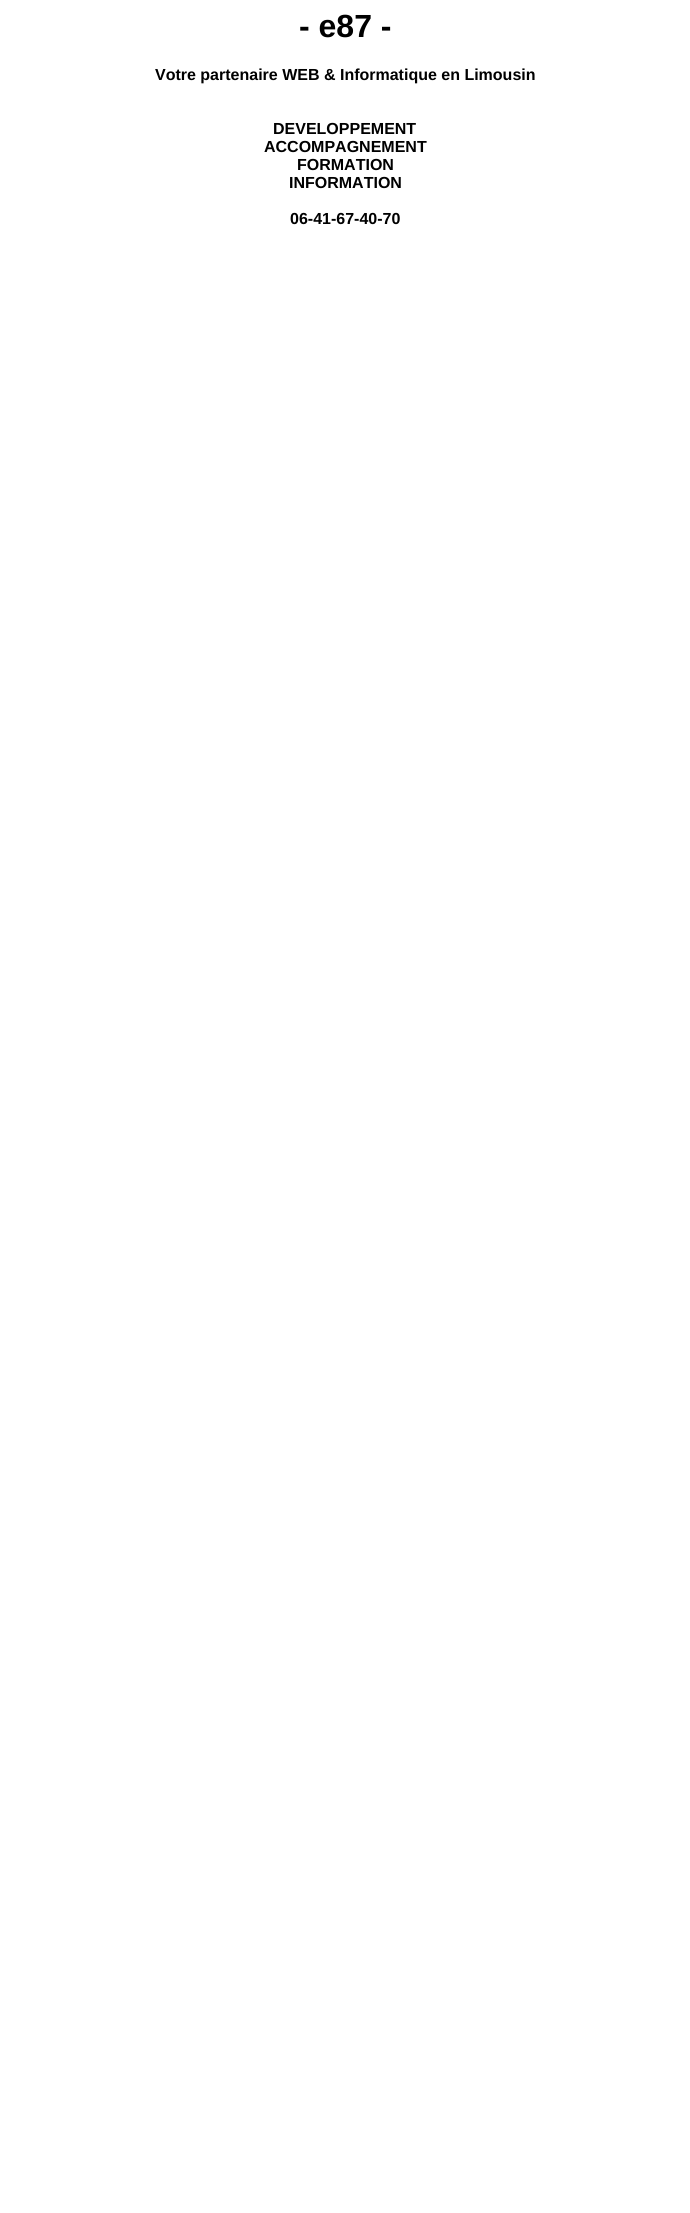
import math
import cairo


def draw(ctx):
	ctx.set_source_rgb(1, 1, 1)
	ctx.paint()
	ctx.select_font_face('Liberation Sans', cairo.FONT_SLANT_NORMAL, cairo.FONT_WEIGHT_BOLD)
	ctx.set_font_size(32)
	ctx.set_source_rgb(0, 0, 0)
	ctx.move_to(299, 37)
	ctx.show_text('- e87 -')
	ctx.set_font_size(16)
	for x, y, s in [
		(155, 80, 'Votre partenaire WEB & Informatique en Limousin'),
		(273, 134, 'DEVELOPPEMENT'),
		(264, 152, 'ACCOMPAGNEMENT'),
		(297, 170, 'FORMATION'),
		(289, 188, 'INFORMATION'),
		(290, 224, '06-41-67-40-70'),
	]:
		ctx.move_to(x, y)
		ctx.show_text(s)


surface = cairo.ImageSurface(cairo.FORMAT_RGB24, 690, 2213)
ctx = cairo.Context(surface)
options = cairo.FontOptions()
options.set_hint_metrics(cairo.HINT_METRICS_OFF)
options.set_hint_style(cairo.HINT_STYLE_NONE)
ctx.set_font_options(options)
ctx.set_miter_limit(4)
draw(ctx)
surface.write_to_png('image.png')
